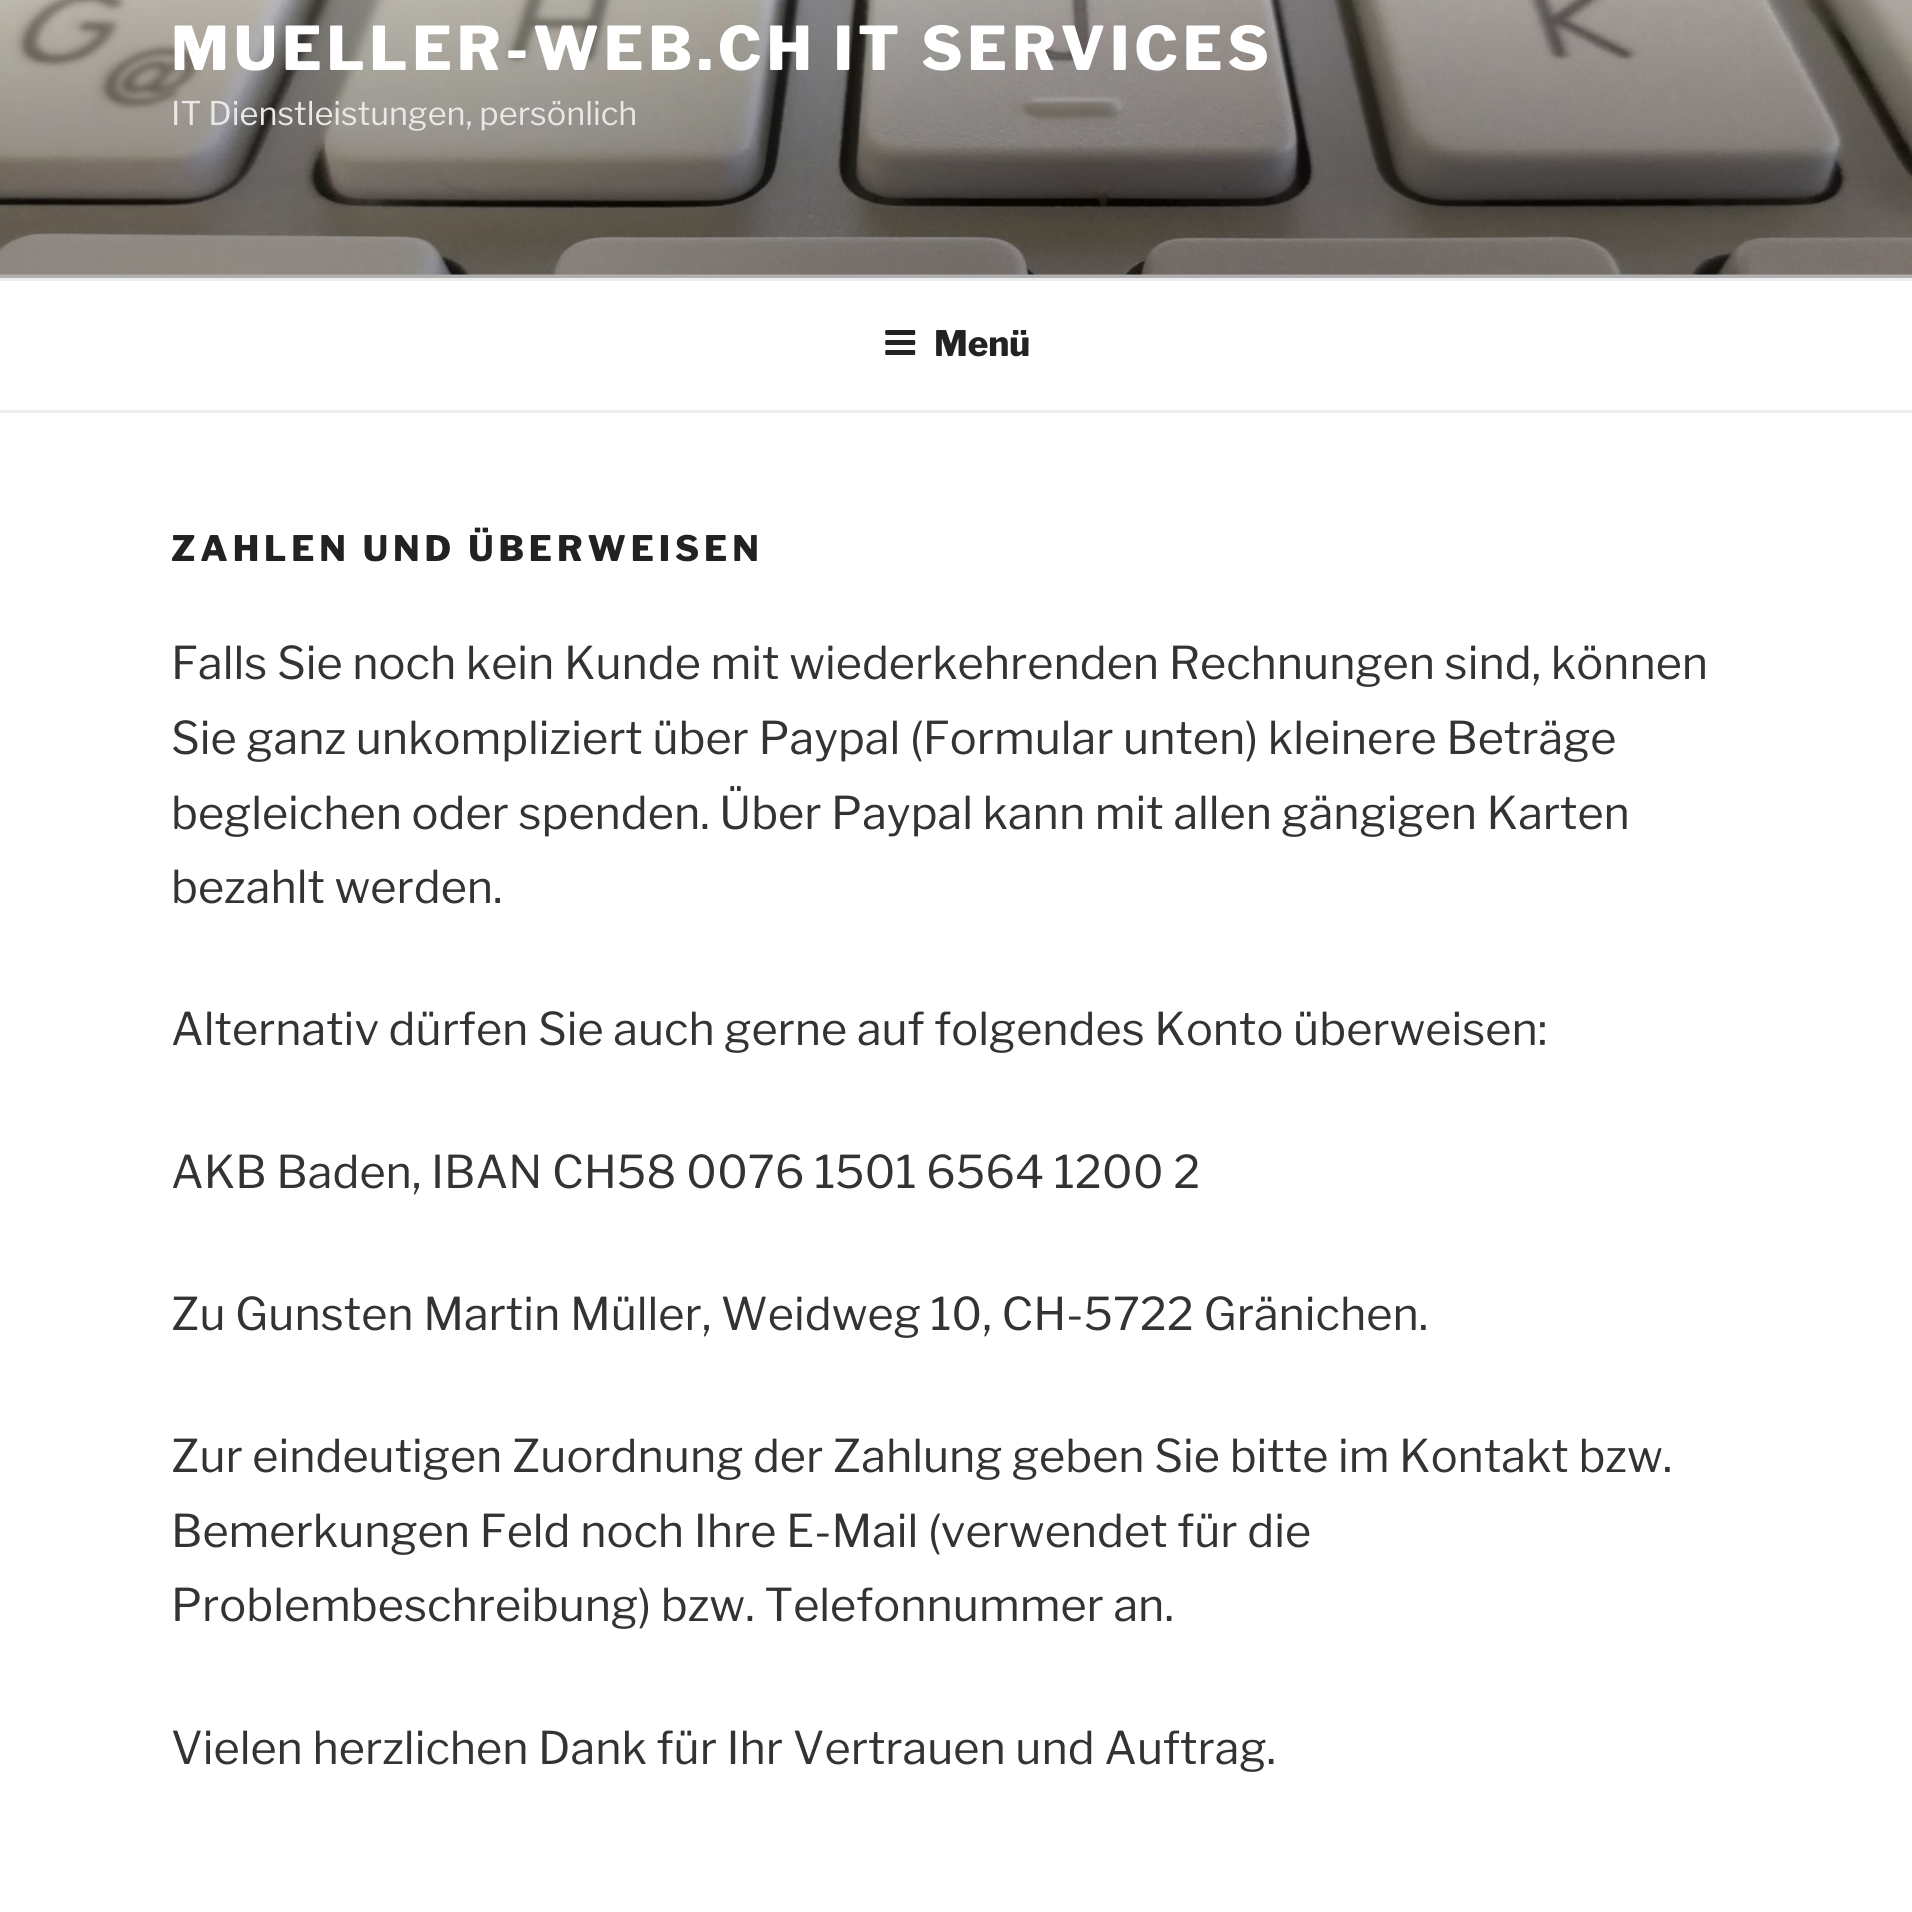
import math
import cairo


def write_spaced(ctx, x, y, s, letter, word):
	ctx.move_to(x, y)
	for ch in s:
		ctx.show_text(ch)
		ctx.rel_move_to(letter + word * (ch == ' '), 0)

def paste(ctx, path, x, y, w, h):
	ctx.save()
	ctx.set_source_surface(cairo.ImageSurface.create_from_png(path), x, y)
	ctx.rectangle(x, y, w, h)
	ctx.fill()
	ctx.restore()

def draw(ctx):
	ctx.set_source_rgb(1, 1, 1)
	ctx.paint()
	ctx.set_source_rgb(0.98, 0.98, 0.98)
	ctx.rectangle(0, 274, 1912, 4)
	ctx.fill()
	paste(ctx, 'media/1.png', 0, 0, 1912, 275)
	gradient = cairo.LinearGradient(956, -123, 956, 278)
	gradient.add_color_stop_rgba(0, 0, 0, 0, 0)
	gradient.add_color_stop_rgba(0.75, 0, 0, 0, 0.3)
	gradient.add_color_stop_rgba(1, 0, 0, 0, 0.3)
	ctx.set_source(gradient)
	ctx.rectangle(0, 0, 1912, 278)
	ctx.fill()
	ctx.select_font_face('Libre Franklin Thin')
	ctx.set_font_size(60)
	ctx.set_source_rgb(1, 1, 1)
	write_spaced(ctx, 171, 70, 'MUELLER-WEB.CH IT SERVICES', 4.8, 0)
	ctx.select_font_face('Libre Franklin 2 Thin')
	ctx.set_font_size(32.5)
	ctx.set_source_rgb(0.914, 0.91, 0.906)
	ctx.move_to(171, 125)
	ctx.show_text('IT Dienstleistungen, persönlich')
	ctx.set_source_rgb(0.933, 0.933, 0.933)
	ctx.rectangle(0, 278, 1912, 3)
	ctx.fill()
	ctx.rectangle(0, 410, 1912, 3)
	ctx.fill()
	paste(ctx, 'media/2.png', 885, 330, 31, 25)
	ctx.select_font_face('Libre Franklin Thin')
	ctx.set_font_size(35)
	ctx.set_source_rgb(0.133, 0.133, 0.133)
	ctx.move_to(934, 356)
	ctx.show_text('Menü')
	write_spaced(ctx, 171, 561, 'ZAHLEN UND ÜBERWEISEN', 4.9, 0)
	ctx.select_font_face('Libre Franklin 2 Thin')
	ctx.set_font_size(45)
	ctx.set_source_rgb(0.2, 0.2, 0.2)
	for x, y, s in [
		(171, 679, 'Falls Sie noch kein Kunde mit wiederkehrenden Rechnungen sind, können'),
		(171, 754, 'Sie ganz unkompliziert über Paypal (Formular unten) kleinere Beträge'),
		(171, 829, 'begleichen oder spenden. Über Paypal kann mit allen gängigen Karten'),
		(171, 903, 'bezahlt werden.'),
		(171, 1045, 'Alternativ dürfen Sie auch gerne auf folgendes Konto überweisen:'),
		(171, 1188, 'AKB Baden, IBAN CH58 0076 1501 6564 1200 2'),
		(171, 1330, 'Zu Gunsten Martin Müller, Weidweg 10, CH-5722 Gränichen.'),
		(171, 1472, 'Zur eindeutigen Zuordnung der Zahlung geben Sie bitte im Kontakt bzw.'),
		(171, 1547, 'Bemerkungen Feld noch Ihre E-Mail (verwendet für die'),
		(171, 1621, 'Problembeschreibung) bzw. Telefonnummer an.'),
		(171, 1764, 'Vielen herzlichen Dank für Ihr Vertrauen und Auftrag.'),
	]:
		ctx.move_to(x, y)
		ctx.show_text(s)


surface = cairo.ImageSurface(cairo.FORMAT_RGB24, 1912, 1912)
ctx = cairo.Context(surface)
options = cairo.FontOptions()
options.set_hint_metrics(cairo.HINT_METRICS_OFF)
options.set_hint_style(cairo.HINT_STYLE_NONE)
ctx.set_font_options(options)
ctx.set_miter_limit(4)
draw(ctx)
surface.write_to_png('image.png')
